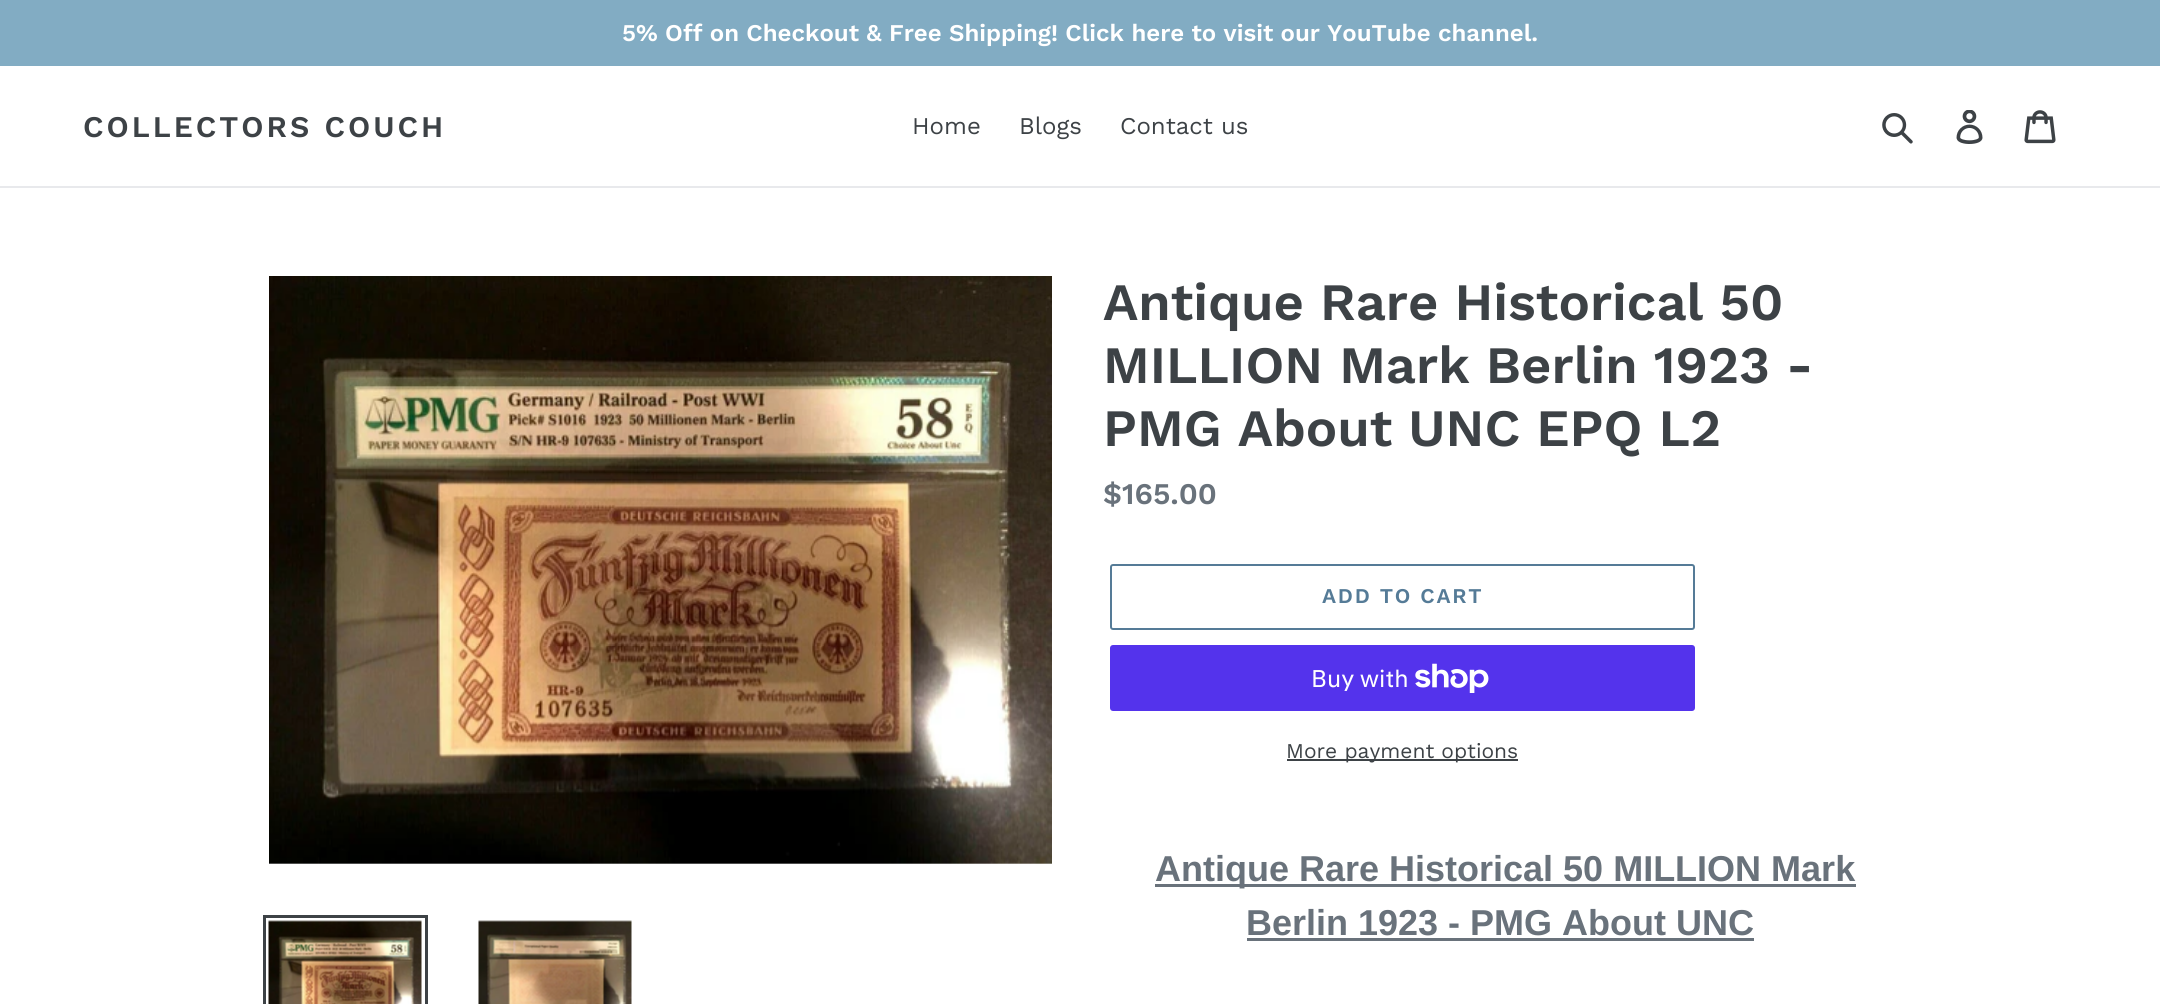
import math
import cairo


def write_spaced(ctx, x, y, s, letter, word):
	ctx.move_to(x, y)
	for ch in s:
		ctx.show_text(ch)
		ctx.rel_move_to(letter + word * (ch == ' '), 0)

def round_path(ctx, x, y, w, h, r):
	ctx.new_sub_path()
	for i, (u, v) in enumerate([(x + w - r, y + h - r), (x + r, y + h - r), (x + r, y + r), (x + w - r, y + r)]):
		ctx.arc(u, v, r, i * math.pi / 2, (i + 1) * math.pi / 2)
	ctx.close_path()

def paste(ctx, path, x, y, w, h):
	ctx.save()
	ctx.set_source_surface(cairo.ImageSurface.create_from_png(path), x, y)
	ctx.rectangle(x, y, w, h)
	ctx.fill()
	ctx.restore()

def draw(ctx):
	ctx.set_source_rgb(1, 1, 1)
	ctx.paint()
	ctx.set_source_rgb(0.51, 0.675, 0.765)
	ctx.rectangle(0, 0, 2160, 66)
	ctx.fill()
	ctx.select_font_face('Work Sans SemiBold')
	ctx.set_font_size(24)
	ctx.set_source_rgb(1, 1, 1)
	ctx.move_to(622, 41)
	ctx.show_text('5% Off on Checkout & Free Shipping! Click here to visit our YouTube channel.')
	ctx.set_source_rgb(0.91, 0.914, 0.922)
	ctx.rectangle(0, 186, 2160, 2)
	ctx.fill()
	ctx.set_font_size(30)
	ctx.set_source_rgb(0.239, 0.259, 0.275)
	write_spaced(ctx, 83, 137, 'COLLECTORS COUCH', 3, 0)
	ctx.select_font_face('Work Sans')
	ctx.set_font_size(24)
	for x, y, s in [
		(912, 134, 'Home'),
		(1019, 134, 'Blogs'),
		(1120, 134, 'Contact us'),
	]:
		ctx.move_to(x, y)
		ctx.show_text(s)
	paste(ctx, 'media/1.png', 1882, 113, 31, 31)
	paste(ctx, 'media/2.png', 1956, 110, 27, 34)
	paste(ctx, 'media/3.png', 2024, 110, 32, 34)
	paste(ctx, 'media/4.png', 269, 276, 783, 588)
	ctx.rectangle(264.5, 916.5, 162, 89)
	ctx.set_line_width(3)
	ctx.stroke()
	paste(ctx, 'media/5.png', 268, 920, 154, 84)
	paste(ctx, 'media/6.png', 478, 920, 154, 84)
	ctx.select_font_face('Work Sans SemiBold')
	ctx.set_font_size(52.5)
	for x, y, s in [
		(1103, 320, 'Antique Rare Historical 50'),
		(1103, 383, 'MILLION Mark Berlin 1923 -'),
		(1103, 446, 'PMG About UNC EPQ L2'),
	]:
		ctx.move_to(x, y)
		ctx.show_text(s)
	ctx.set_font_size(30)
	ctx.set_source_rgb(0.412, 0.447, 0.482)
	ctx.move_to(1103, 504)
	ctx.show_text('$165.00')
	round_path(ctx, 1111, 565, 583, 64, 2)
	ctx.set_source_rgb(0.333, 0.482, 0.592)
	ctx.set_line_width(2)
	ctx.stroke()
	ctx.set_font_size(21)
	write_spaced(ctx, 1322, 603, 'ADD TO CART', 1.75, 0)
	ctx.set_source_rgb(0.329, 0.2, 0.922)
	round_path(ctx, 1110, 645, 585, 66, 3)
	ctx.fill()
	ctx.select_font_face('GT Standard')
	ctx.set_font_size(24)
	ctx.set_source_rgb(1, 1, 1)
	ctx.move_to(1311, 687)
	ctx.show_text('Buy with')
	paste(ctx, 'media/7.png', 1415, 663, 74, 30)
	ctx.set_source_rgb(0.239, 0.259, 0.275)
	ctx.rectangle(1287, 759, 231, 2)
	ctx.fill()
	ctx.select_font_face('Work Sans')
	ctx.set_font_size(21)
	ctx.move_to(1286, 758)
	ctx.show_text('More payment options')
	ctx.set_source_rgb(0.412, 0.447, 0.482)
	ctx.rectangle(1155, 884, 701, 3)
	ctx.fill()
	ctx.select_font_face('Liberation Sans', cairo.FONT_SLANT_NORMAL, cairo.FONT_WEIGHT_BOLD)
	ctx.set_font_size(36)
	ctx.move_to(1155, 881)
	ctx.show_text('Antique Rare Historical 50 MILLION Mark')
	ctx.move_to(1246, 935)
	ctx.show_text('Berlin 1923 - PMG About UNC')
	ctx.rectangle(1247, 938, 507, 3)
	ctx.fill()


surface = cairo.ImageSurface(cairo.FORMAT_RGB24, 2160, 1004)
ctx = cairo.Context(surface)
options = cairo.FontOptions()
options.set_hint_metrics(cairo.HINT_METRICS_OFF)
options.set_hint_style(cairo.HINT_STYLE_NONE)
ctx.set_font_options(options)
ctx.set_miter_limit(4)
draw(ctx)
surface.write_to_png('image.png')
